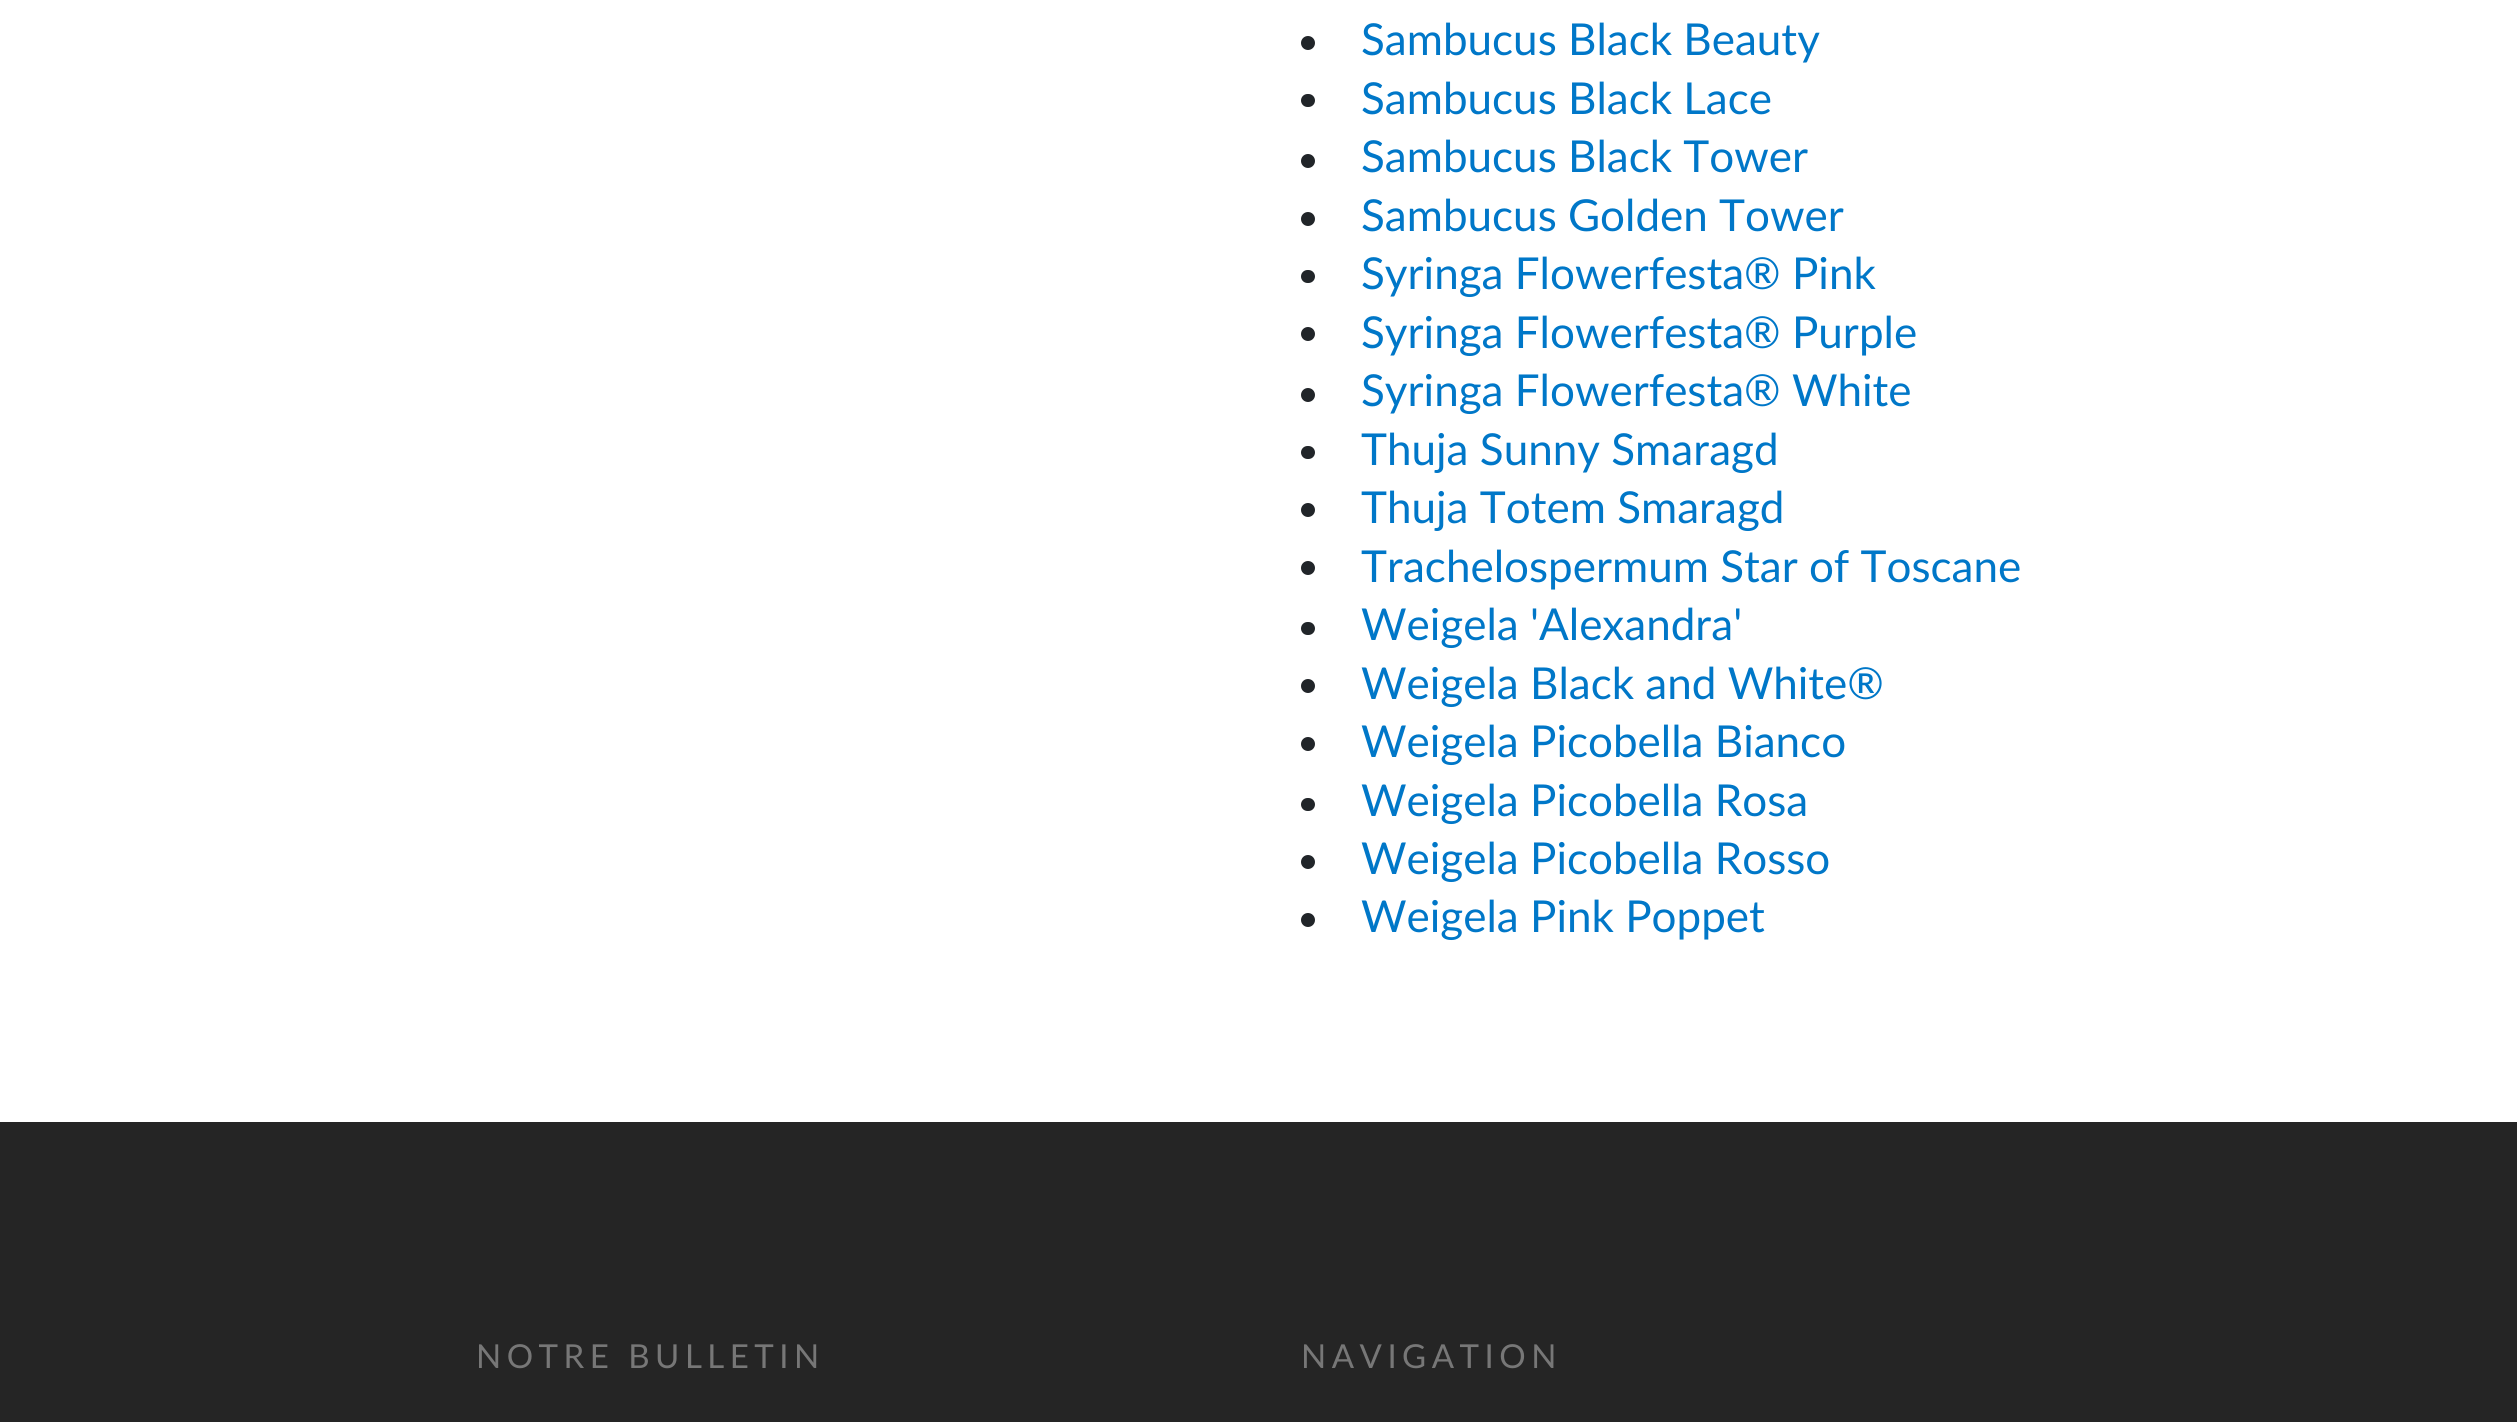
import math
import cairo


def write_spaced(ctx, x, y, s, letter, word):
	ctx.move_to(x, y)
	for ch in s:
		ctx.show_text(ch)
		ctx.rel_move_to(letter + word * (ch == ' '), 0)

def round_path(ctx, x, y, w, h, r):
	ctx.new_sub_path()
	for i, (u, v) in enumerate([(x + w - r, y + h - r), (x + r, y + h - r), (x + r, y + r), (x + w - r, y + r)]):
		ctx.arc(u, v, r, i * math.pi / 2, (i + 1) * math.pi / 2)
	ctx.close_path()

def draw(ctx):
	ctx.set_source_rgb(1, 1, 1)
	ctx.paint()
	ctx.set_source_rgb(0.129, 0.145, 0.161)
	ctx.arc(1308, 43, 7, 0, 2 * math.pi)
	ctx.fill()
	ctx.select_font_face('Lato')
	ctx.set_font_size(44)
	ctx.set_source_rgb(0, 0.467, 0.784)
	ctx.move_to(1361, 55)
	ctx.show_text('Sambucus Black Beauty')
	ctx.set_source_rgb(0.129, 0.145, 0.161)
	round_path(ctx, 1301, 94, 14, 13, 6.5)
	ctx.fill()
	ctx.set_source_rgb(0, 0.467, 0.784)
	ctx.move_to(1361, 114)
	ctx.show_text('Sambucus Black Lace')
	ctx.set_source_rgb(0.129, 0.145, 0.161)
	ctx.new_path()
	ctx.arc(1308, 161, 7, 0, 2 * math.pi)
	ctx.fill()
	ctx.set_source_rgb(0, 0.467, 0.784)
	ctx.move_to(1361, 172)
	ctx.show_text('Sambucus Black Tower')
	ctx.set_source_rgb(0.129, 0.145, 0.161)
	ctx.new_path()
	ctx.arc(1308, 219, 7, 0, 2 * math.pi)
	ctx.fill()
	ctx.set_source_rgb(0, 0.467, 0.784)
	ctx.move_to(1361, 231)
	ctx.show_text('Sambucus Golden Tower')
	ctx.set_source_rgb(0.129, 0.145, 0.161)
	round_path(ctx, 1301, 270, 14, 13, 6.5)
	ctx.fill()
	ctx.set_source_rgb(0, 0.467, 0.784)
	ctx.move_to(1361, 289)
	ctx.show_text('Syringa Flowerfesta® Pink')
	ctx.set_source_rgb(0.129, 0.145, 0.161)
	ctx.new_path()
	ctx.arc(1308, 334, 7, 0, 2 * math.pi)
	ctx.fill()
	ctx.set_source_rgb(0, 0.467, 0.784)
	ctx.move_to(1361, 348)
	ctx.show_text('Syringa Flowerfesta® Purple')
	ctx.set_source_rgb(0.129, 0.145, 0.161)
	ctx.new_path()
	ctx.arc(1308, 395, 7, 0, 2 * math.pi)
	ctx.fill()
	ctx.set_source_rgb(0, 0.467, 0.784)
	ctx.move_to(1361, 406)
	ctx.show_text('Syringa Flowerfesta® White')
	ctx.set_source_rgb(0.129, 0.145, 0.161)
	round_path(ctx, 1301, 446, 14, 13, 6.5)
	ctx.fill()
	ctx.set_source_rgb(0, 0.467, 0.784)
	ctx.move_to(1361, 465)
	ctx.show_text('Thuja Sunny Smaragd')
	ctx.set_source_rgb(0.129, 0.145, 0.161)
	ctx.new_path()
	ctx.arc(1308, 510, 7, 0, 2 * math.pi)
	ctx.fill()
	ctx.set_source_rgb(0, 0.467, 0.784)
	ctx.move_to(1361, 523)
	ctx.show_text('Thuja Totem Smaragd')
	ctx.set_source_rgb(0.129, 0.145, 0.161)
	ctx.new_path()
	ctx.arc(1308, 568, 7, 0, 2 * math.pi)
	ctx.fill()
	ctx.set_source_rgb(0, 0.467, 0.784)
	ctx.move_to(1361, 582)
	ctx.show_text('Trachelospermum Star of Toscane')
	ctx.set_source_rgb(0.129, 0.145, 0.161)
	round_path(ctx, 1301, 622, 14, 13, 6.5)
	ctx.fill()
	ctx.set_source_rgb(0, 0.467, 0.784)
	ctx.move_to(1361, 640)
	ctx.show_text('Weigela \'Alexandra\'')
	ctx.set_source_rgb(0.129, 0.145, 0.161)
	ctx.new_path()
	ctx.arc(1308, 686, 7, 0, 2 * math.pi)
	ctx.fill()
	ctx.set_source_rgb(0, 0.467, 0.784)
	ctx.move_to(1361, 699)
	ctx.show_text('Weigela Black and White®')
	ctx.set_source_rgb(0.129, 0.145, 0.161)
	ctx.new_path()
	ctx.arc(1308, 744, 7, 0, 2 * math.pi)
	ctx.fill()
	ctx.set_source_rgb(0, 0.467, 0.784)
	ctx.move_to(1361, 757)
	ctx.show_text('Weigela Picobella Bianco')
	ctx.set_source_rgb(0.129, 0.145, 0.161)
	round_path(ctx, 1301, 798, 14, 13, 6.5)
	ctx.fill()
	ctx.set_source_rgb(0, 0.467, 0.784)
	ctx.move_to(1361, 816)
	ctx.show_text('Weigela Picobella Rosa')
	ctx.set_source_rgb(0.129, 0.145, 0.161)
	ctx.new_path()
	ctx.arc(1308, 862, 7, 0, 2 * math.pi)
	ctx.fill()
	ctx.set_source_rgb(0, 0.467, 0.784)
	ctx.move_to(1361, 874)
	ctx.show_text('Weigela Picobella Rosso')
	ctx.set_source_rgb(0.129, 0.145, 0.161)
	ctx.new_path()
	ctx.arc(1308, 920, 7, 0, 2 * math.pi)
	ctx.fill()
	ctx.set_source_rgb(0, 0.467, 0.784)
	ctx.move_to(1361, 932)
	ctx.show_text('Weigela Pink Poppet')
	ctx.set_source_rgb(0.145, 0.145, 0.145)
	ctx.rectangle(0, 1122, 2517, 300)
	ctx.fill()
	ctx.set_font_size(33)
	ctx.set_source_rgb(0.467, 0.467, 0.467)
	write_spaced(ctx, 476, 1368, 'NOTRE BULLETIN', 5.5, 0)
	write_spaced(ctx, 1301, 1368, 'NAVIGATION', 5.5, 0)


surface = cairo.ImageSurface(cairo.FORMAT_RGB24, 2517, 1422)
ctx = cairo.Context(surface)
options = cairo.FontOptions()
options.set_hint_metrics(cairo.HINT_METRICS_OFF)
options.set_hint_style(cairo.HINT_STYLE_NONE)
ctx.set_font_options(options)
ctx.set_miter_limit(4)
draw(ctx)
surface.write_to_png('image.png')
